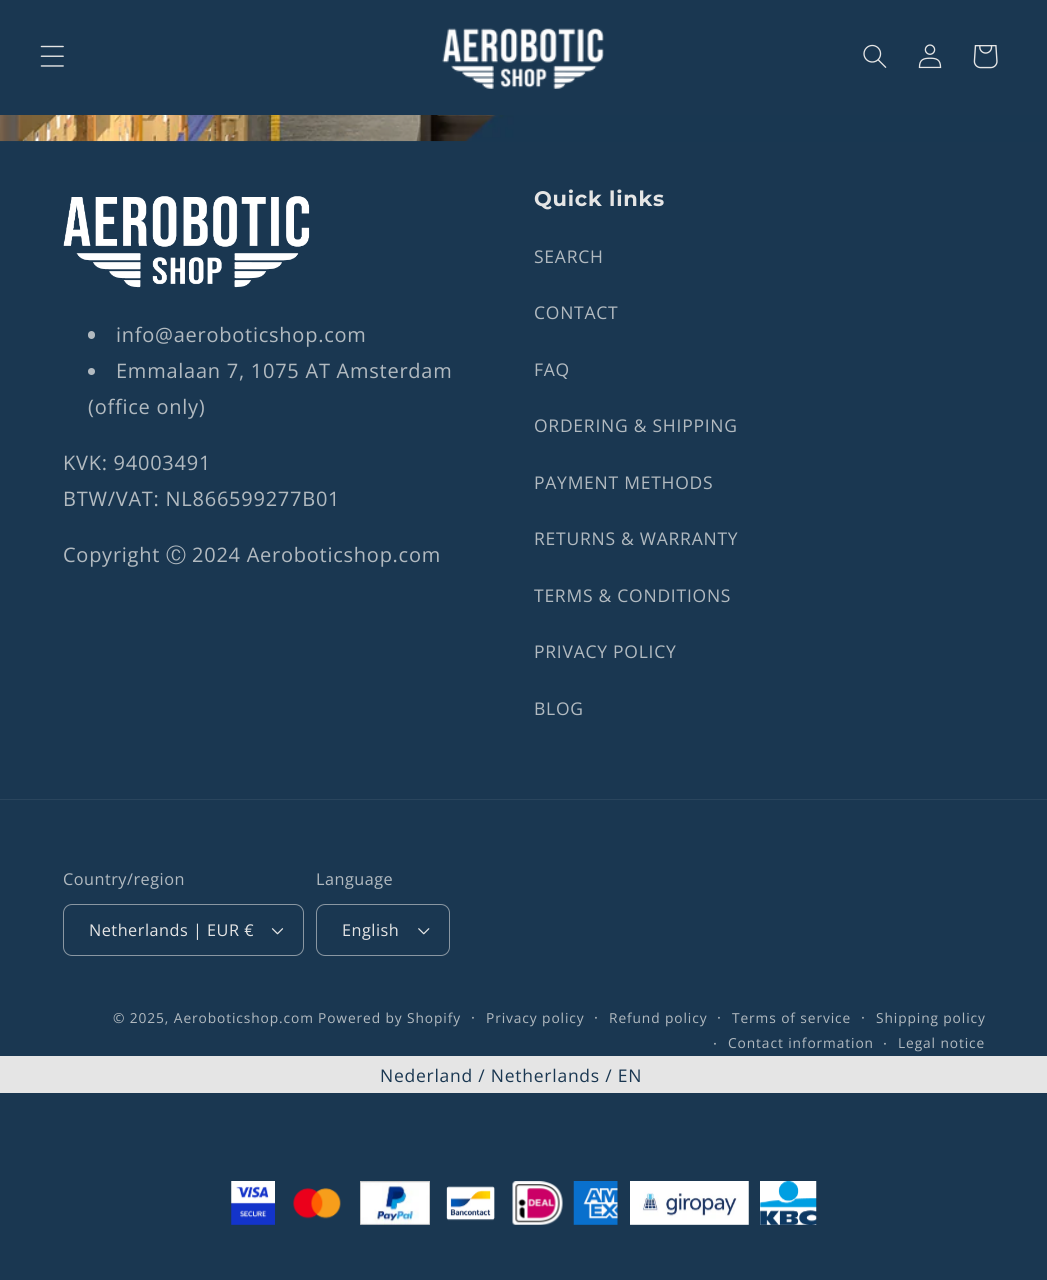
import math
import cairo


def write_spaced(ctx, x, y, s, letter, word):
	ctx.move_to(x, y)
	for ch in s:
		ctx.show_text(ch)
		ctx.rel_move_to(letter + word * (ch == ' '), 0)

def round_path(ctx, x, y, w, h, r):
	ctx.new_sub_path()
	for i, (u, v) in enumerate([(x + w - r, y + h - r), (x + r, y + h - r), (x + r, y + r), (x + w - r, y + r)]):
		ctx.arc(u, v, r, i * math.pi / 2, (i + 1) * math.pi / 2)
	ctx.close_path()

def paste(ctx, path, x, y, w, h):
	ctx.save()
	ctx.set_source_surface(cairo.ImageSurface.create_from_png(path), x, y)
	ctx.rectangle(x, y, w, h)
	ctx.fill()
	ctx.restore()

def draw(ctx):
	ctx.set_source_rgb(0.102, 0.216, 0.318)
	ctx.paint()
	paste(ctx, 'media/1.png', 40, 45, 24, 22)
	paste(ctx, 'media/2.png', 442, 28, 162, 61)
	paste(ctx, 'media/3.png', 863, 44, 24, 24)
	paste(ctx, 'media/4.png', 918, 44, 24, 25)
	paste(ctx, 'media/5.png', 973, 45, 25, 24)
	paste(ctx, 'media/6.png', 0, 115, 1047, 27)
	paste(ctx, 'media/7.png', 63, 196, 247, 92)
	ctx.set_source_rgb(0.698, 0.729, 0.753)
	round_path(ctx, 88, 331, 7, 8, 3.5)
	ctx.fill()
	ctx.select_font_face('Open Sans')
	ctx.set_font_size(20)
	write_spaced(ctx, 116, 342, 'info@aeroboticshop.com', 0.75, 0)
	ctx.new_path()
	ctx.arc(91.5, 371.5, 3.5, 0, 2 * math.pi)
	ctx.fill()
	for x, y, s in [
		(116, 378, 'Emmalaan 7, 1075 AT Amsterdam'),
		(88, 414, '(office only)'),
		(63, 470, 'KVK: 94003491'),
		(63, 506, 'BTW/VAT: NL866599277B01'),
		(63, 562, 'Copyright'),
	]:
		write_spaced(ctx, x, y, s, 0.75, 0)
	ctx.select_font_face('WenQuanYi Zen Hei Medium')
	write_spaced(ctx, 166, 562, 'Ⓒ', 0.75, 0)
	ctx.select_font_face('Open Sans')
	write_spaced(ctx, 192, 562, '2024 Aeroboticshop.com', 0.75, 0)
	ctx.select_font_face('Montserrat', cairo.FONT_SLANT_NORMAL, cairo.FONT_WEIGHT_BOLD)
	ctx.set_font_size(21)
	ctx.set_source_rgb(0.898, 0.898, 0.898)
	write_spaced(ctx, 534, 206, 'Quick links', 0.75, 0)
	ctx.select_font_face('Open Sans')
	ctx.set_font_size(17.5)
	ctx.set_source_rgb(0.698, 0.729, 0.753)
	for x, y, s in [
		(534, 263, 'SEARCH'),
		(534, 319, 'CONTACT'),
		(534, 376, 'FAQ'),
		(534, 432, 'ORDERING & SHIPPING'),
		(534, 489, 'PAYMENT METHODS'),
		(534, 545, 'RETURNS & WARRANTY'),
		(534, 602, 'TERMS & CONDITIONS'),
		(534, 658, 'PRIVACY POLICY'),
		(534, 715, 'BLOG'),
	]:
		write_spaced(ctx, x, y, s, 0.75, 0)
	ctx.set_source_rgb(0.165, 0.271, 0.365)
	ctx.rectangle(0, 799, 1047, 1)
	ctx.fill()
	ctx.set_font_size(16.25)
	ctx.set_source_rgb(0.698, 0.729, 0.753)
	write_spaced(ctx, 63, 885, 'Country/region', 0.5, 0)
	paste(ctx, 'media/8.png', 271, 928, 13, 7)
	round_path(ctx, 63.5, 904.5, 240, 51, 8.5)
	ctx.set_source_rgb(0.541, 0.592, 0.635)
	ctx.set_line_width(1)
	ctx.stroke()
	ctx.set_source_rgb(0.898, 0.898, 0.898)
	write_spaced(ctx, 89, 936, 'Netherlands | EUR €', 0.5, 0)
	ctx.set_source_rgb(0.698, 0.729, 0.753)
	write_spaced(ctx, 316, 885, 'Language', 0.5, 0)
	paste(ctx, 'media/9.png', 418, 928, 12, 7)
	round_path(ctx, 316.5, 904.5, 133, 51, 8.5)
	ctx.set_source_rgb(0.541, 0.592, 0.635)
	ctx.stroke()
	ctx.set_source_rgb(0.898, 0.898, 0.898)
	write_spaced(ctx, 342, 936, 'English', 0.5, 0)
	ctx.set_font_size(13.75)
	ctx.set_source_rgb(0.698, 0.729, 0.753)
	write_spaced(ctx, 113, 1023, '© 2025, Aeroboticshop.com', 0.9, 0)
	write_spaced(ctx, 318, 1023, 'Powered by Shopify', 0.9, 0)
	ctx.set_font_size(15)
	write_spaced(ctx, 471, 1023, '·', 0.9, 0)
	ctx.set_font_size(13.75)
	write_spaced(ctx, 486, 1023, 'Privacy policy', 0.9, 0)
	ctx.set_font_size(15)
	write_spaced(ctx, 594, 1023, '·', 0.9, 0)
	ctx.set_font_size(13.75)
	write_spaced(ctx, 609, 1023, 'Refund policy', 0.9, 0)
	ctx.set_font_size(15)
	write_spaced(ctx, 717, 1023, '·', 0.9, 0)
	ctx.set_font_size(13.75)
	write_spaced(ctx, 732, 1023, 'Terms of service', 0.9, 0)
	ctx.set_font_size(15)
	write_spaced(ctx, 861, 1023, '·', 0.9, 0)
	ctx.set_font_size(13.75)
	write_spaced(ctx, 876, 1023, 'Shipping policy', 0.9, 0)
	ctx.set_font_size(15)
	write_spaced(ctx, 713, 1049, '·', 0.9, 0)
	ctx.set_font_size(13.75)
	write_spaced(ctx, 728, 1048, 'Contact information', 0.9, 0)
	ctx.set_font_size(15)
	write_spaced(ctx, 883, 1049, '·', 0.9, 0)
	ctx.set_font_size(13.75)
	write_spaced(ctx, 898, 1048, 'Legal notice', 0.9, 0)
	ctx.set_source_rgb(0.898, 0.898, 0.898)
	ctx.rectangle(0, 1056, 1047, 37)
	ctx.fill()
	ctx.set_font_size(17.5)
	ctx.set_source_rgb(0.102, 0.216, 0.318)
	write_spaced(ctx, 380, 1082, 'Nederland / Netherlands / EN', 0.75, 0)
	paste(ctx, 'media/10.png', 231, 1181, 44, 44)
	paste(ctx, 'media/11.png', 293, 1188, 48, 31)
	paste(ctx, 'media/12.png', 360, 1181, 70, 44)
	paste(ctx, 'media/13.png', 446, 1186, 49, 35)
	paste(ctx, 'media/14.png', 512, 1181, 51, 44)
	paste(ctx, 'media/15.png', 573, 1181, 45, 44)
	paste(ctx, 'media/16.png', 630, 1181, 119, 44)
	paste(ctx, 'media/17.png', 760, 1181, 57, 44)


surface = cairo.ImageSurface(cairo.FORMAT_RGB24, 1047, 1280)
ctx = cairo.Context(surface)
options = cairo.FontOptions()
options.set_hint_metrics(cairo.HINT_METRICS_OFF)
options.set_hint_style(cairo.HINT_STYLE_NONE)
ctx.set_font_options(options)
ctx.set_miter_limit(4)
draw(ctx)
surface.write_to_png('image.png')
